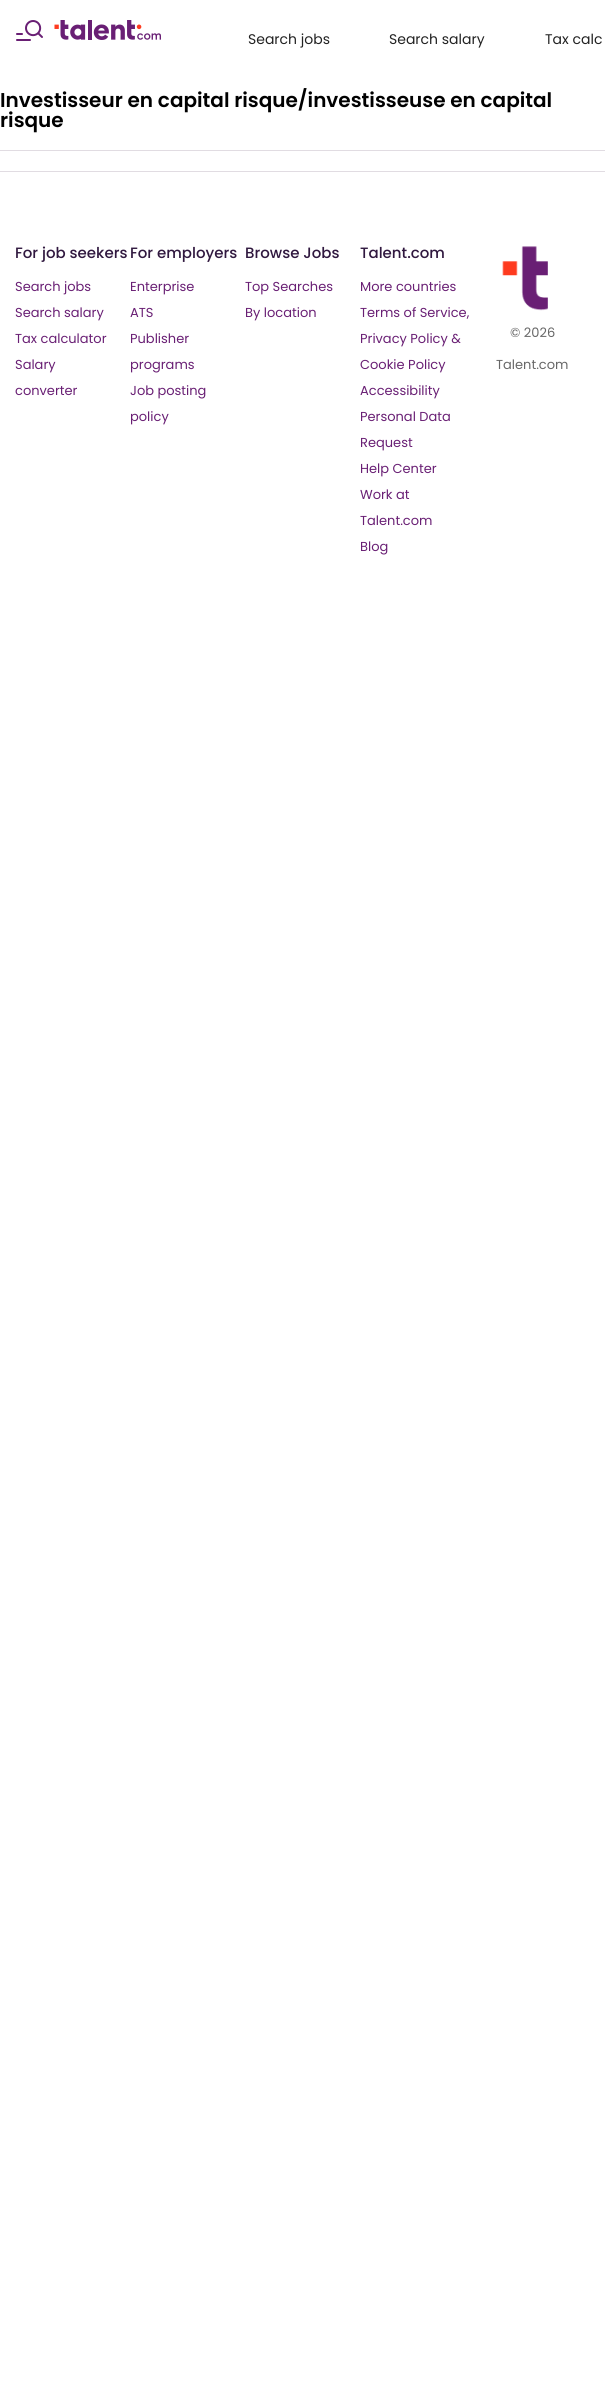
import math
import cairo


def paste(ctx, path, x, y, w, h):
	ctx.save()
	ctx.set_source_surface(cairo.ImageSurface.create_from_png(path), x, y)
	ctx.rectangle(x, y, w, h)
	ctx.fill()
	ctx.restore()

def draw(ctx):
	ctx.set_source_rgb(1, 1, 1)
	ctx.paint()
	paste(ctx, 'media/1.png', 16, 20, 27, 21)
	paste(ctx, 'media/2.png', 54, 20, 107, 20)
	ctx.select_font_face('Poppins')
	ctx.set_font_size(14)
	ctx.set_source_rgb(0.133, 0.133, 0.133)
	for x, y, s in [
		(248, 44, 'Search jobs'),
		(389, 44, 'Search salary'),
		(545, 44, 'Tax calc'),
	]:
		ctx.move_to(x, y)
		ctx.show_text(s)
	ctx.select_font_face('Poppins SemiBold')
	ctx.set_font_size(20)
	ctx.set_source_rgb(0, 0, 0)
	ctx.move_to(0, 107)
	ctx.show_text('Investisseur en capital risque/investisseuse en capital')
	ctx.move_to(0, 127)
	ctx.show_text('risque')
	ctx.set_source_rgb(0.882, 0.863, 0.886)
	ctx.rectangle(0, 150, 605, 1)
	ctx.fill()
	ctx.rectangle(0, 171, 605, 1)
	ctx.fill()
	ctx.select_font_face('Poppins Medium')
	ctx.set_font_size(15)
	ctx.set_source_rgb(0.188, 0.094, 0.247)
	ctx.move_to(15, 258)
	ctx.show_text('For job seekers')
	ctx.select_font_face('Poppins')
	ctx.set_font_size(13)
	ctx.set_source_rgb(0.412, 0.122, 0.455)
	for x, y, s in [
		(15, 291, 'Search jobs'),
		(15, 317, 'Search salary'),
		(15, 343, 'Tax calculator'),
		(15, 369, 'Salary'),
		(15, 395, 'converter'),
	]:
		ctx.move_to(x, y)
		ctx.show_text(s)
	ctx.select_font_face('Poppins Medium')
	ctx.set_font_size(15)
	ctx.set_source_rgb(0.188, 0.094, 0.247)
	ctx.move_to(130, 258)
	ctx.show_text('For employers')
	ctx.select_font_face('Poppins')
	ctx.set_font_size(13)
	ctx.set_source_rgb(0.412, 0.122, 0.455)
	for x, y, s in [
		(130, 291, 'Enterprise'),
		(130, 317, 'ATS'),
		(130, 343, 'Publisher'),
		(130, 369, 'programs'),
		(130, 395, 'Job posting'),
		(130, 421, 'policy'),
	]:
		ctx.move_to(x, y)
		ctx.show_text(s)
	ctx.select_font_face('Poppins Medium')
	ctx.set_font_size(15)
	ctx.set_source_rgb(0.188, 0.094, 0.247)
	ctx.move_to(245, 258)
	ctx.show_text('Browse Jobs')
	ctx.select_font_face('Poppins')
	ctx.set_font_size(13)
	ctx.set_source_rgb(0.412, 0.122, 0.455)
	ctx.move_to(245, 291)
	ctx.show_text('Top Searches')
	ctx.move_to(245, 317)
	ctx.show_text('By location')
	ctx.select_font_face('Poppins Medium')
	ctx.set_font_size(15)
	ctx.set_source_rgb(0.188, 0.094, 0.247)
	ctx.move_to(360, 258)
	ctx.show_text('Talent.com')
	ctx.select_font_face('Poppins')
	ctx.set_font_size(13)
	ctx.set_source_rgb(0.412, 0.122, 0.455)
	for x, y, s in [
		(360, 291, 'More countries'),
		(360, 317, 'Terms of Service,'),
		(360, 343, 'Privacy Policy &'),
		(360, 369, 'Cookie Policy'),
		(360, 395, 'Accessibility'),
		(360, 421, 'Personal Data'),
		(360, 447, 'Request'),
		(360, 473, 'Help Center'),
		(360, 499, 'Work at'),
		(360, 525, 'Talent.com'),
		(360, 551, 'Blog'),
	]:
		ctx.move_to(x, y)
		ctx.show_text(s)
	paste(ctx, 'media/3.png', 502, 246, 46, 65)
	ctx.set_source_rgb(0.404, 0.404, 0.404)
	ctx.move_to(510, 337)
	ctx.show_text('© 2026')
	ctx.move_to(496, 369)
	ctx.show_text('Talent.com')


surface = cairo.ImageSurface(cairo.FORMAT_RGB24, 605, 2385)
ctx = cairo.Context(surface)
options = cairo.FontOptions()
options.set_hint_metrics(cairo.HINT_METRICS_OFF)
options.set_hint_style(cairo.HINT_STYLE_NONE)
ctx.set_font_options(options)
ctx.set_miter_limit(4)
draw(ctx)
surface.write_to_png('image.png')
